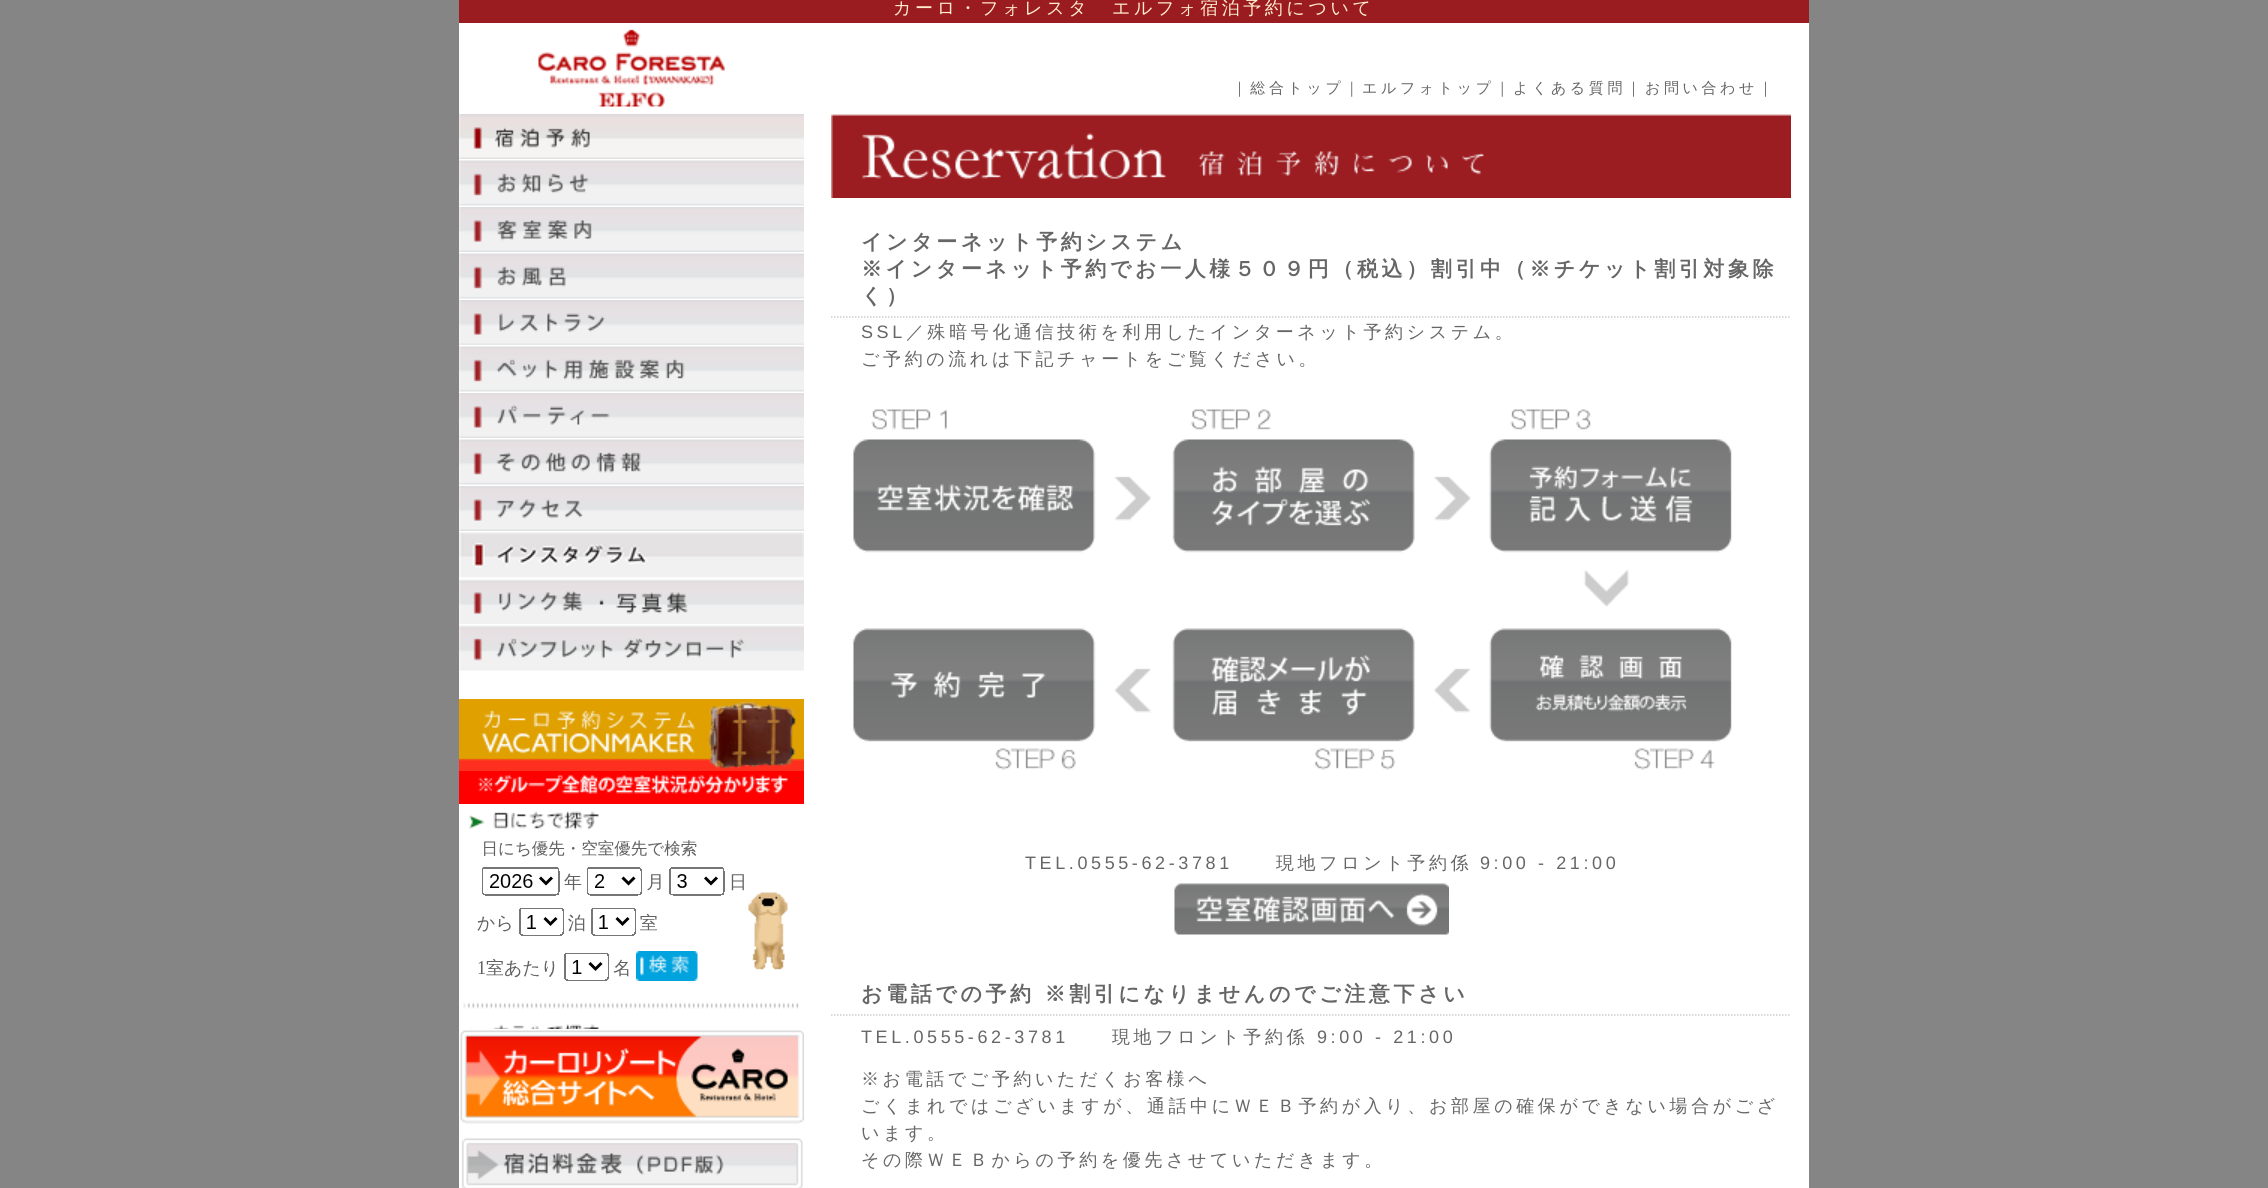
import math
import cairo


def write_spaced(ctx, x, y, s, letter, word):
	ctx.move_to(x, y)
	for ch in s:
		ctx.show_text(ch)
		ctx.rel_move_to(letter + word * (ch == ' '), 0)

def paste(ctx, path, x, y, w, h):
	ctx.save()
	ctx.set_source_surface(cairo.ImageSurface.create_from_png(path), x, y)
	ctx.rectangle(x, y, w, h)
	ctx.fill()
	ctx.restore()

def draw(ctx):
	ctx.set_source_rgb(0.522, 0.522, 0.522)
	ctx.paint()
	ctx.set_source_rgb(1, 1, 1)
	ctx.rectangle(459, 23, 1350, 1165)
	ctx.fill()
	ctx.set_source_rgb(0.608, 0.11, 0.125)
	ctx.rectangle(459, 0, 1350, 23)
	ctx.fill()
	ctx.select_font_face('WenQuanYi Zen Hei Medium')
	ctx.set_font_size(18)
	ctx.set_source_rgb(1, 0.929, 0.8)
	write_spaced(ctx, 893, 14, 'カーロ・フォレスタ　エルフォ宿泊予約について', 3.6, 0)
	paste(ctx, 'media/1.png', 538, 29, 187, 78)
	paste(ctx, 'media/2.png', 459, 114, 345, 45)
	paste(ctx, 'media/3.png', 459, 160, 345, 46)
	paste(ctx, 'media/4.png', 459, 207, 345, 45)
	paste(ctx, 'media/5.png', 459, 253, 345, 46)
	paste(ctx, 'media/6.png', 459, 300, 345, 45)
	paste(ctx, 'media/7.png', 459, 346, 345, 46)
	paste(ctx, 'media/8.png', 459, 393, 345, 45)
	paste(ctx, 'media/9.png', 459, 439, 345, 46)
	paste(ctx, 'media/10.png', 459, 486, 345, 45)
	paste(ctx, 'media/11.png', 459, 532, 345, 46)
	paste(ctx, 'media/12.png', 459, 579, 345, 45)
	paste(ctx, 'media/13.png', 459, 625, 345, 46)
	paste(ctx, 'media/14.png', 459, 699, 345, 72)
	paste(ctx, 'media/15.png', 459, 771, 345, 33)
	paste(ctx, 'media/16.png', 463, 811, 336, 218)
	paste(ctx, 'media/17.png', 460, 1030, 344, 94)
	paste(ctx, 'media/18.png', 461, 1138, 342, 50)
	ctx.set_font_size(15)
	ctx.set_source_rgb(0.4, 0.4, 0.4)
	for x, y, s in [
		(1232, 93, '｜総合トップ｜'),
		(1362, 93, 'エルフォトップ｜'),
		(1513, 93, 'よくある質問｜'),
		(1645, 93, 'お問い合わせ｜'),
	]:
		write_spaced(ctx, x, y, s, 3.6, 0)
	paste(ctx, 'media/19.png', 831, 114, 960, 84)
	ctx.new_path()
	ctx.move_to(831, 317)
	ctx.line_to(1791, 317)
	ctx.set_source_rgb(0.8, 0.8, 0.8)
	ctx.set_line_width(1.5)
	ctx.set_dash([1.5, 1.5])
	ctx.stroke()
	ctx.select_font_face('WenQuanYi Zen Hei', cairo.FONT_SLANT_NORMAL, cairo.FONT_WEIGHT_BOLD)
	ctx.set_font_size(21)
	ctx.set_source_rgb(0.4, 0.4, 0.4)
	for x, y, s in [
		(861, 249, 'インターネット予約システム'),
		(861, 276, '※インターネット予約でお一人様５０９円（税込）割引中（※チケット割引対象除'),
		(861, 303, 'く）'),
	]:
		write_spaced(ctx, x, y, s, 3.6, 0)
	ctx.select_font_face('Liberation Sans')
	ctx.set_font_size(18)
	write_spaced(ctx, 861, 338, 'SSL', 3.6, 0)
	ctx.select_font_face('WenQuanYi Zen Hei Medium')
	write_spaced(ctx, 906, 338, '／殊暗号化通信技術を利用したインターネット予約システム。', 3.6, 0)
	write_spaced(ctx, 861, 365, 'ご予約の流れは下記チャートをご覧ください。', 3.6, 0)
	paste(ctx, 'media/20.png', 853, 409, 879, 361)
	ctx.select_font_face('Liberation Sans')
	write_spaced(ctx, 1025, 869, 'TEL.0555-62-3781', 3.6, 0)
	ctx.select_font_face('WenQuanYi Zen Hei Medium')
	write_spaced(ctx, 1276, 869, '現地フロント予約係', 3.6, 0)
	ctx.select_font_face('Liberation Sans')
	write_spaced(ctx, 1480, 869, '9:00 - 21:00', 3.6, 0)
	paste(ctx, 'media/21.png', 1174, 883, 275, 52)
	ctx.new_path()
	ctx.move_to(831, 1015)
	ctx.line_to(1791, 1015)
	ctx.set_source_rgb(0.8, 0.8, 0.8)
	ctx.stroke()
	ctx.select_font_face('WenQuanYi Zen Hei', cairo.FONT_SLANT_NORMAL, cairo.FONT_WEIGHT_BOLD)
	ctx.set_font_size(21)
	ctx.set_source_rgb(0.4, 0.4, 0.4)
	write_spaced(ctx, 861, 1001, 'お電話での予約 ※割引になりませんのでご注意下さい', 3.6, 0)
	ctx.select_font_face('Liberation Sans')
	ctx.set_font_size(18)
	write_spaced(ctx, 861, 1043, 'TEL.0555-62-3781', 3.6, 0)
	ctx.select_font_face('WenQuanYi Zen Hei Medium')
	write_spaced(ctx, 1112, 1043, '現地フロント予約係', 3.6, 0)
	ctx.select_font_face('Liberation Sans')
	write_spaced(ctx, 1317, 1043, '9:00 - 21:00', 3.6, 0)
	ctx.select_font_face('WenQuanYi Zen Hei Medium')
	for x, y, s in [
		(861, 1085, '※お電話でご予約いただくお客様へ'),
		(861, 1112, 'ごくまれではございますが、通話中にＷＥＢ予約が入り、お部屋の確保ができない場合がござ'),
		(861, 1139, 'います。'),
		(861, 1166, 'その際ＷＥＢからの予約を優先させていただきます。'),
	]:
		write_spaced(ctx, x, y, s, 3.6, 0)


surface = cairo.ImageSurface(cairo.FORMAT_RGB24, 2268, 1188)
ctx = cairo.Context(surface)
options = cairo.FontOptions()
options.set_hint_metrics(cairo.HINT_METRICS_OFF)
options.set_hint_style(cairo.HINT_STYLE_NONE)
ctx.set_font_options(options)
ctx.set_miter_limit(4)
draw(ctx)
surface.write_to_png('image.png')
